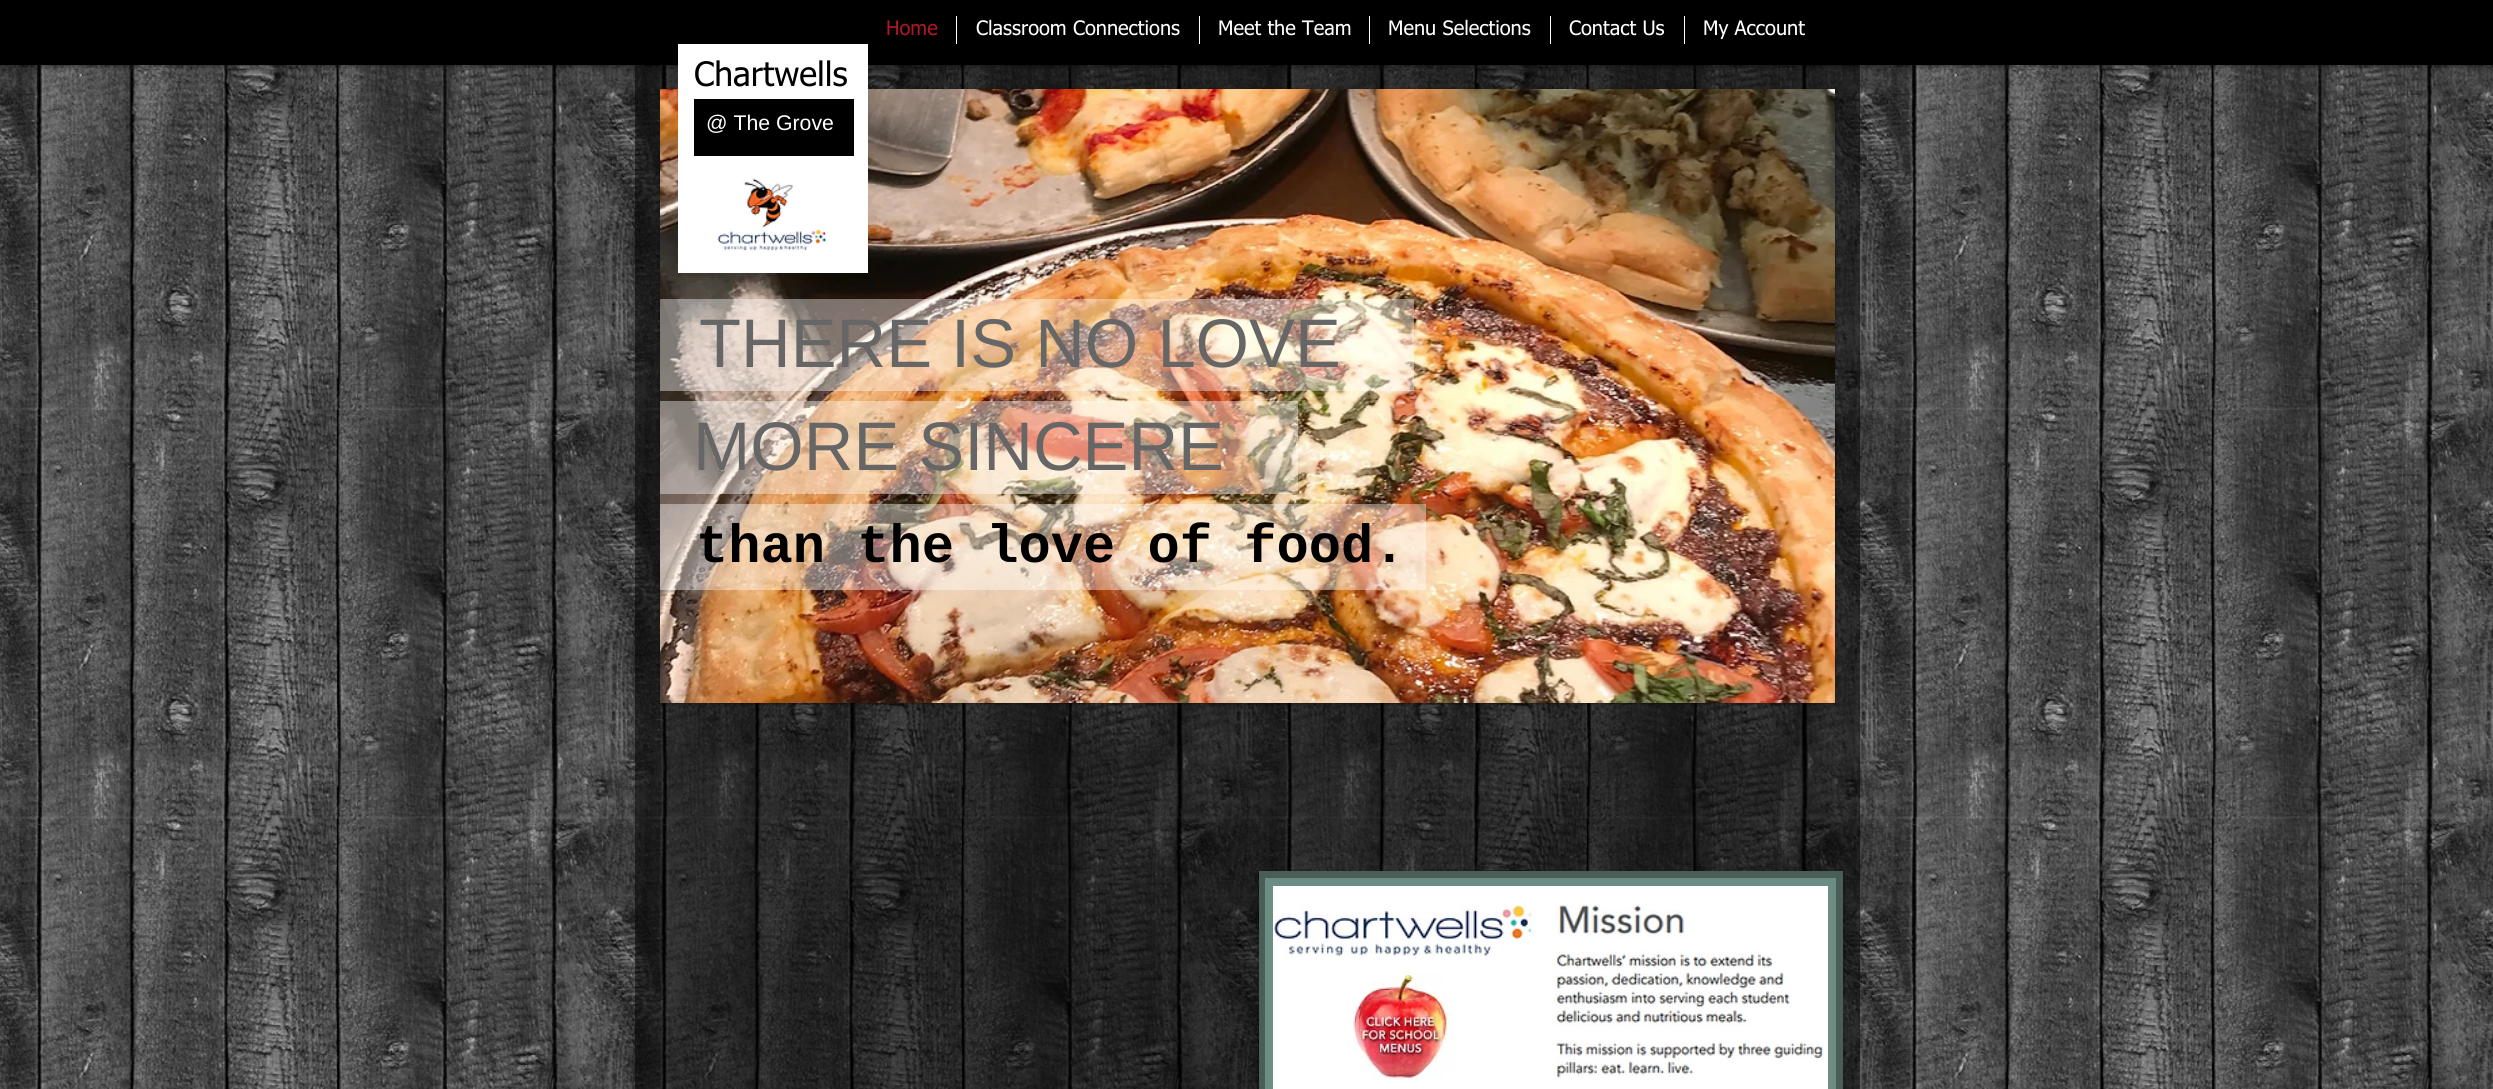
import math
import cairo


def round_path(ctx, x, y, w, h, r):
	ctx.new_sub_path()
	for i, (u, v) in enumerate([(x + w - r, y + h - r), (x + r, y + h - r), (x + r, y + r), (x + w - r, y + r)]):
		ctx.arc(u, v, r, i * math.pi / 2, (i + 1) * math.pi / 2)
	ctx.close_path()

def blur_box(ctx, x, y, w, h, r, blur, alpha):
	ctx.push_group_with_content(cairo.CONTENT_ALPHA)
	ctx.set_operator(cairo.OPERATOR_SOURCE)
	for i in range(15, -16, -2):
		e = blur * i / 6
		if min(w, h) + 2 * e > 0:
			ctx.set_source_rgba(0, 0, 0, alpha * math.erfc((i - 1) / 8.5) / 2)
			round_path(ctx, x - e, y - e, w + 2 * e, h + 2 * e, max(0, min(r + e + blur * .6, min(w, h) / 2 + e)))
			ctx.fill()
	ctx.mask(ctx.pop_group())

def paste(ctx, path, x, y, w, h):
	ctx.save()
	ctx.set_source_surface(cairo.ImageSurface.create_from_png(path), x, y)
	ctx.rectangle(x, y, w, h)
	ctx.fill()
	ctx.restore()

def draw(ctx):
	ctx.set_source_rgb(1, 1, 1)
	ctx.paint()
	paste(ctx, 'media/5.png', 0, 65, 2493, 1024)
	ctx.set_source_rgba(0, 0, 0, 0.51)
	ctx.rectangle(635, 65, 1225, 1024)
	ctx.fill()
	ctx.set_source_rgb(0, 0, 0)
	blur_box(ctx, 0, 0, 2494, 65, 0, 3, 0.7)
	ctx.set_source_rgb(0, 0, 0)
	ctx.rectangle(0, 0, 2493, 65)
	ctx.fill()
	ctx.select_font_face('tahoma')
	ctx.set_font_size(20)
	ctx.set_source_rgb(0.678, 0.094, 0.133)
	ctx.move_to(886, 35)
	ctx.show_text('Home')
	ctx.set_source_rgb(1, 1, 1)
	ctx.rectangle(956, 16, 1, 28)
	ctx.fill()
	ctx.move_to(976, 35)
	ctx.show_text('Classroom Connections')
	ctx.rectangle(1199, 16, 1, 28)
	ctx.fill()
	ctx.move_to(1218, 35)
	ctx.show_text('Meet the Team')
	ctx.rectangle(1369, 16, 1, 28)
	ctx.fill()
	ctx.move_to(1388, 35)
	ctx.show_text('Menu Selections')
	ctx.rectangle(1550, 16, 1, 28)
	ctx.fill()
	ctx.move_to(1569, 35)
	ctx.show_text('Contact Us')
	ctx.rectangle(1684, 16, 1, 28)
	ctx.fill()
	ctx.move_to(1703, 35)
	ctx.show_text('My Account')
	ctx.set_source_rgb(0, 0, 0)
	blur_box(ctx, 660, 90, 1175, 614, 0, 2, 0.5)
	paste(ctx, 'media/2.png', 660, 89, 1175, 614)
	ctx.set_source_rgb(1, 1, 1)
	ctx.rectangle(678, 44, 190, 229)
	ctx.fill()
	ctx.set_font_size(33.75)
	ctx.set_source_rgb(0, 0, 0)
	ctx.move_to(694, 86)
	ctx.show_text('Chartwells')
	ctx.rectangle(694, 99, 160, 57)
	ctx.fill()
	ctx.select_font_face('Liberation Sans')
	ctx.set_font_size(21.25)
	ctx.set_source_rgb(1, 1, 1)
	ctx.move_to(706, 130)
	ctx.show_text('@ The Grove')
	paste(ctx, 'media/1.png', 717, 178, 110, 73)
	ctx.set_font_size(68.75)
	ctx.set_source_rgb(0, 0, 0)
	ctx.move_to(699, 367)
	ctx.show_text('THERE IS NO LOVE')
	ctx.set_source_rgba(1, 1, 1, 0.4)
	ctx.rectangle(660, 299, 754, 92)
	ctx.fill()
	ctx.set_source_rgb(0, 0, 0)
	ctx.move_to(693, 470)
	ctx.show_text('MORE SINCERE')
	ctx.set_source_rgba(1, 1, 1, 0.4)
	ctx.rectangle(660, 401, 638, 93)
	ctx.fill()
	ctx.rectangle(660, 504, 766, 86)
	ctx.fill()
	ctx.select_font_face('Liberation Mono', cairo.FONT_SLANT_NORMAL, cairo.FONT_WEIGHT_BOLD)
	ctx.set_font_size(53.75)
	ctx.set_source_rgb(0, 0, 0)
	ctx.move_to(696, 562)
	ctx.show_text('than the love of food.')
	ctx.set_source_rgb(0, 0, 0)
	blur_box(ctx, 1259, 873, 584, 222, 0, 2, 0.5)
	ctx.set_source_rgb(1, 1, 1)
	ctx.rectangle(1273, 886, 555, 203)
	ctx.fill()
	ctx.rectangle(1263.5, 875.5, 575, 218)
	ctx.set_source_rgb(0.282, 0.369, 0.341)
	ctx.set_line_width(9)
	ctx.stroke()
	paste(ctx, 'media/3.png', 1274, 905, 550, 173)
	ctx.rectangle(1269, 882, 563, 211)
	ctx.set_source_rgb(0.424, 0.553, 0.514)
	ctx.set_line_width(8)
	ctx.stroke()
	paste(ctx, 'media/4.png', 1353, 972, 101, 109)


surface = cairo.ImageSurface(cairo.FORMAT_RGB24, 2493, 1089)
ctx = cairo.Context(surface)
options = cairo.FontOptions()
options.set_hint_metrics(cairo.HINT_METRICS_OFF)
options.set_hint_style(cairo.HINT_STYLE_NONE)
ctx.set_font_options(options)
ctx.set_miter_limit(4)
draw(ctx)
surface.write_to_png('image.png')
